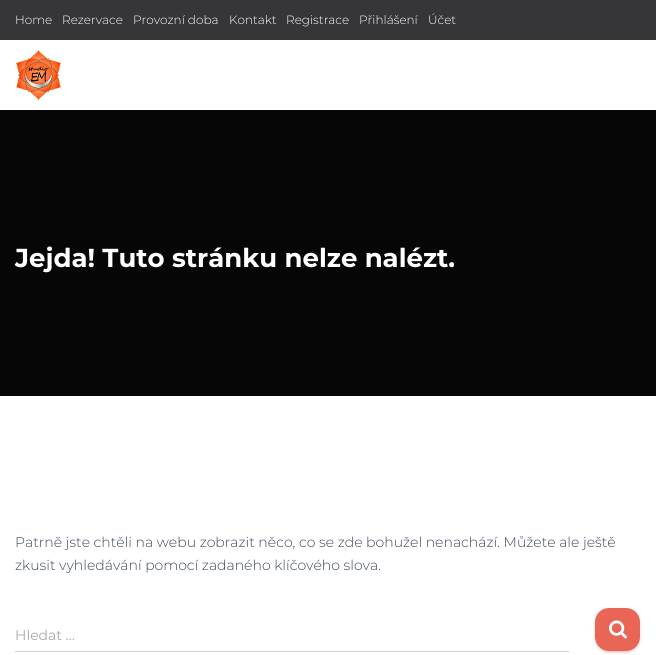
import math
import cairo


def round_path(ctx, x, y, w, h, r):
	ctx.new_sub_path()
	for i, (u, v) in enumerate([(x + w - r, y + h - r), (x + r, y + h - r), (x + r, y + r), (x + w - r, y + r)]):
		ctx.arc(u, v, r, i * math.pi / 2, (i + 1) * math.pi / 2)
	ctx.close_path()

def blur_box(ctx, x, y, w, h, r, blur, alpha):
	ctx.push_group_with_content(cairo.CONTENT_ALPHA)
	ctx.set_operator(cairo.OPERATOR_SOURCE)
	for i in range(15, -16, -2):
		e = blur * i / 6
		if min(w, h) + 2 * e > 0:
			ctx.set_source_rgba(0, 0, 0, alpha * math.erfc((i - 1) / 8.5) / 2)
			round_path(ctx, x - e, y - e, w + 2 * e, h + 2 * e, max(0, min(r + e + blur * .6, min(w, h) / 2 + e)))
			ctx.fill()
	ctx.mask(ctx.pop_group())

def paste(ctx, path, x, y, w, h):
	ctx.save()
	ctx.set_source_surface(cairo.ImageSurface.create_from_png(path), x, y)
	ctx.rectangle(x, y, w, h)
	ctx.fill()
	ctx.restore()

def draw(ctx):
	ctx.set_source_rgb(0.212, 0.208, 0.216)
	ctx.paint()
	ctx.select_font_face('Montserrat Light')
	ctx.set_font_size(12)
	ctx.set_source_rgb(1, 1, 1)
	for x, y, s in [
		(15, 24, 'Home'),
		(62, 24, 'Rezervace'),
		(133, 24, 'Provozní doba'),
		(229, 24, 'Kontakt'),
		(286, 24, 'Registrace'),
		(359, 24, 'Přihlášení'),
		(428, 24, 'Účet'),
	]:
		ctx.move_to(x, y)
		ctx.show_text(s)
	ctx.rectangle(0, 40, 656, 70)
	ctx.fill()
	paste(ctx, 'media/1.png', 15, 50, 47, 50)
	ctx.set_source_rgb(0.024, 0.024, 0.024)
	ctx.rectangle(0, 110, 656, 286)
	ctx.fill()
	ctx.select_font_face('Montserrat', cairo.FONT_SLANT_NORMAL, cairo.FONT_WEIGHT_BOLD)
	ctx.set_font_size(26)
	ctx.set_source_rgb(1, 1, 1)
	ctx.move_to(15, 267)
	ctx.show_text('Jejda! Tuto stránku nelze nalézt.')
	ctx.rectangle(0, 396, 656, 259)
	ctx.fill()
	ctx.select_font_face('Montserrat Light')
	ctx.set_font_size(14)
	ctx.set_source_rgb(0.235, 0.282, 0.345)
	ctx.move_to(15, 547)
	ctx.show_text('Patrně jste chtěli na webu zobrazit něco, co se zde bohužel nenachází. Můžete ale ještě')
	ctx.move_to(15, 570)
	ctx.show_text('zkusit vyhledávání pomocí zadaného klíčového slova.')
	ctx.select_font_face('Montserrat')
	ctx.set_source_rgb(0.667, 0.667, 0.667)
	ctx.move_to(15, 640)
	ctx.show_text('Hledat …')
	ctx.set_source_rgb(0.824, 0.824, 0.824)
	ctx.rectangle(15, 651, 554, 1)
	ctx.fill()
	ctx.set_source_rgb(0.914, 0.4, 0.337)
	blur_box(ctx, 595, 609, 45, 43, 14, 2.5, 0.12)
	blur_box(ctx, 597, 613, 41, 39, 12, 0.5, 0.2)
	blur_box(ctx, 595, 610, 45, 43, 14, 1, 0.14)
	ctx.set_source_rgb(0.914, 0.4, 0.337)
	round_path(ctx, 595, 608, 45, 43, 14)
	ctx.fill()
	paste(ctx, 'media/2.png', 609, 620, 18, 19)


surface = cairo.ImageSurface(cairo.FORMAT_RGB24, 656, 655)
ctx = cairo.Context(surface)
options = cairo.FontOptions()
options.set_hint_metrics(cairo.HINT_METRICS_OFF)
options.set_hint_style(cairo.HINT_STYLE_NONE)
ctx.set_font_options(options)
ctx.set_miter_limit(4)
draw(ctx)
surface.write_to_png('image.png')
